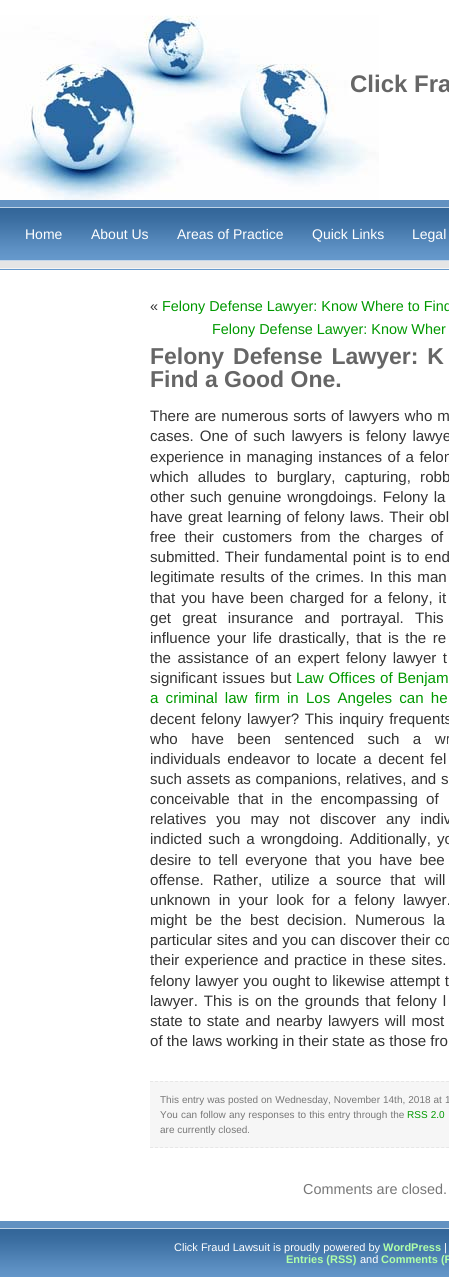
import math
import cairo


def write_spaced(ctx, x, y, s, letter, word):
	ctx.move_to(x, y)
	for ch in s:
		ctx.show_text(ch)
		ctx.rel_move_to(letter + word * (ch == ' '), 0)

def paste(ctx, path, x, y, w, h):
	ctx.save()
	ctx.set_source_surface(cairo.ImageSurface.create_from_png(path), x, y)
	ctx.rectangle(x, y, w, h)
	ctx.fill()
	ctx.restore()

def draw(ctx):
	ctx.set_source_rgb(1, 1, 1)
	ctx.paint()
	paste(ctx, 'media/1.png', 0, 15, 379, 185)
	ctx.select_font_face('Liberation Sans', cairo.FONT_SLANT_NORMAL, cairo.FONT_WEIGHT_BOLD)
	ctx.set_font_size(24)
	ctx.set_source_rgb(0.4, 0.4, 0.4)
	ctx.move_to(350, 92)
	ctx.show_text('Click Fra')
	ctx.set_source_rgb(0.4, 0.6, 0.8)
	ctx.rectangle(0, 269, 449, 1)
	ctx.fill()
	paste(ctx, 'media/2.png', 0, 200, 449, 69)
	ctx.select_font_face('Liberation Sans')
	ctx.set_font_size(14)
	ctx.set_source_rgb(1, 1, 1)
	for x, y, s in [
		(25, 239, 'Home'),
		(91, 239, 'About Us'),
		(177, 239, 'Areas of Practice'),
		(312, 239, 'Quick Links'),
		(412, 239, 'Legal'),
	]:
		ctx.move_to(x, y)
		ctx.show_text(s)
	ctx.set_font_size(14.4)
	ctx.set_source_rgb(0.2, 0.2, 0.2)
	ctx.move_to(150, 311)
	ctx.show_text('«')
	ctx.set_source_rgb(0, 0.6, 0)
	ctx.move_to(162, 311)
	ctx.show_text('Felony Defense Lawyer: Know Where to Find')
	ctx.move_to(212, 334)
	ctx.show_text('Felony Defense Lawyer: Know Wher')
	ctx.select_font_face('Liberation Sans', cairo.FONT_SLANT_NORMAL, cairo.FONT_WEIGHT_BOLD)
	ctx.set_font_size(23)
	ctx.set_source_rgb(0.4, 0.4, 0.4)
	write_spaced(ctx, 150, 364, 'Felony Defense Lawyer: K', 0, 2.5)
	ctx.move_to(150, 387)
	ctx.show_text('Find a Good One.')
	ctx.select_font_face('Liberation Sans')
	ctx.set_font_size(15.1)
	ctx.set_source_rgb(0.2, 0.2, 0.2)
	write_spaced(ctx, 150, 421, 'There are numerous sorts of lawyers who m', 0, 0.75)
	write_spaced(ctx, 150, 441, 'cases. One of such lawyers is felony lawye', 0, 2)
	write_spaced(ctx, 150, 462, 'experience in managing instances of a felon', 0, 1.25)
	write_spaced(ctx, 150, 482, 'which alludes to burglary, capturing, robb', 0, 5)
	write_spaced(ctx, 150, 502, 'other such genuine wrongdoings. Felony la', 0, 1.5)
	write_spaced(ctx, 150, 522, 'have great learning of felony laws. Their obl', 0, 1)
	write_spaced(ctx, 150, 542, 'free their customers from the charges of', 0, 4.25)
	write_spaced(ctx, 150, 562, 'submitted. Their fundamental point is to end', 0, 1)
	write_spaced(ctx, 150, 582, 'legitimate results of the crimes. In this man', 0, 1.5)
	write_spaced(ctx, 150, 603, 'that you have been charged for a felony, it', 0, 1.75)
	write_spaced(ctx, 150, 623, 'get great insurance and portrayal. This', 0, 7)
	write_spaced(ctx, 150, 643, 'influence your life drastically, that is the re', 0, 2.25)
	write_spaced(ctx, 150, 663, 'the assistance of an expert felony lawyer t', 0, 2.25)
	write_spaced(ctx, 150, 683, 'significant issues but', 0, 1)
	ctx.set_source_rgb(0, 0.6, 0)
	write_spaced(ctx, 296, 683, 'Law Offices of Benjam', 0, 0.5)
	write_spaced(ctx, 150, 703, 'a criminal law firm in Los Angeles can he', 0, 3)
	ctx.set_source_rgb(0.2, 0.2, 0.2)
	write_spaced(ctx, 150, 724, 'decent felony lawyer? This inquiry frequents', 0, 1.5)
	write_spaced(ctx, 150, 744, 'who have been sentenced such a wr', 0, 9.25)
	write_spaced(ctx, 150, 764, 'individuals endeavor to locate a decent fel', 0, 2.5)
	write_spaced(ctx, 150, 784, 'such assets as companions, relatives, and s', 0, 0.5)
	write_spaced(ctx, 150, 804, 'conceivable that in the encompassing of', 0, 4)
	write_spaced(ctx, 150, 824, 'relatives you may not discover any indiv', 0, 5.75)
	write_spaced(ctx, 150, 844, 'indicted such a wrongdoing. Additionally, yo', 0, 2)
	write_spaced(ctx, 150, 865, 'desire to tell everyone that you have bee', 0, 3.25)
	write_spaced(ctx, 150, 885, 'offense. Rather, utilize a source that will', 0, 4.75)
	write_spaced(ctx, 150, 905, 'unknown in your look for a felony lawyer.', 0, 4)
	write_spaced(ctx, 150, 925, 'might be the best decision. Numerous la', 0, 4.25)
	write_spaced(ctx, 150, 945, 'particular sites and you can discover their co', 0, 0.4)
	write_spaced(ctx, 150, 965, 'their experience and practice in these sites.', 0, 1)
	write_spaced(ctx, 150, 986, 'felony lawyer you ought to likewise attempt t', 0, 0.5)
	write_spaced(ctx, 150, 1006, 'lawyer. This is on the grounds that felony l', 0, 1.75)
	write_spaced(ctx, 150, 1026, 'state to state and nearby lawyers will most', 0, 1.5)
	ctx.move_to(150, 1046)
	ctx.show_text('of the laws working in their state as those fro')
	ctx.set_source_rgb(0.961, 0.961, 0.961)
	ctx.rectangle(150, 1081, 299, 67)
	ctx.fill()
	ctx.new_path()
	ctx.move_to(150, 1081.5)
	ctx.line_to(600, 1081.5)
	ctx.set_source_rgb(0.906, 0.906, 0.906)
	ctx.set_line_width(1)
	ctx.set_dash([3, 2.02])
	ctx.stroke()
	ctx.new_path()
	ctx.move_to(150, 1147.5)
	ctx.line_to(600, 1147.5)
	ctx.stroke()
	ctx.set_font_size(10)
	ctx.set_source_rgb(0.467, 0.467, 0.467)
	write_spaced(ctx, 160, 1103, 'This entry was posted on Wednesday, November 14th, 2018 at 1', 0, 0.25)
	write_spaced(ctx, 160, 1118, 'You can follow any responses to this entry through the', 0, 0.4)
	ctx.set_source_rgb(0, 0.6, 0)
	write_spaced(ctx, 407, 1118, 'RSS 2.0', 0, 0.4)
	ctx.set_source_rgb(0.467, 0.467, 0.467)
	ctx.move_to(160, 1133)
	ctx.show_text('are currently closed.')
	ctx.set_font_size(14.4)
	ctx.move_to(303, 1194)
	ctx.show_text('Comments are closed.')
	paste(ctx, 'media/3.png', 0, 1221, 449, 56)
	ctx.set_font_size(11)
	ctx.set_source_rgb(1, 1, 1)
	ctx.move_to(174, 1251)
	ctx.show_text('Click Fraud Lawsuit is proudly powered by')
	ctx.select_font_face('Liberation Sans', cairo.FONT_SLANT_NORMAL, cairo.FONT_WEIGHT_BOLD)
	ctx.set_source_rgb(0.686, 1, 0.663)
	ctx.move_to(383, 1251)
	ctx.show_text('WordPress')
	ctx.select_font_face('Liberation Sans')
	ctx.set_source_rgb(1, 1, 1)
	ctx.move_to(444, 1251)
	ctx.show_text('|')
	ctx.select_font_face('Liberation Sans', cairo.FONT_SLANT_NORMAL, cairo.FONT_WEIGHT_BOLD)
	ctx.set_source_rgb(0.686, 1, 0.663)
	ctx.move_to(286, 1263)
	ctx.show_text('Entries (RSS)')
	ctx.select_font_face('Liberation Sans')
	ctx.set_source_rgb(1, 1, 1)
	ctx.move_to(360, 1263)
	ctx.show_text('and')
	ctx.select_font_face('Liberation Sans', cairo.FONT_SLANT_NORMAL, cairo.FONT_WEIGHT_BOLD)
	ctx.set_source_rgb(0.686, 1, 0.663)
	ctx.move_to(381, 1263)
	ctx.show_text('Comments (R')


surface = cairo.ImageSurface(cairo.FORMAT_RGB24, 449, 1277)
ctx = cairo.Context(surface)
options = cairo.FontOptions()
options.set_hint_metrics(cairo.HINT_METRICS_OFF)
options.set_hint_style(cairo.HINT_STYLE_NONE)
ctx.set_font_options(options)
ctx.set_miter_limit(4)
draw(ctx)
surface.write_to_png('image.png')
